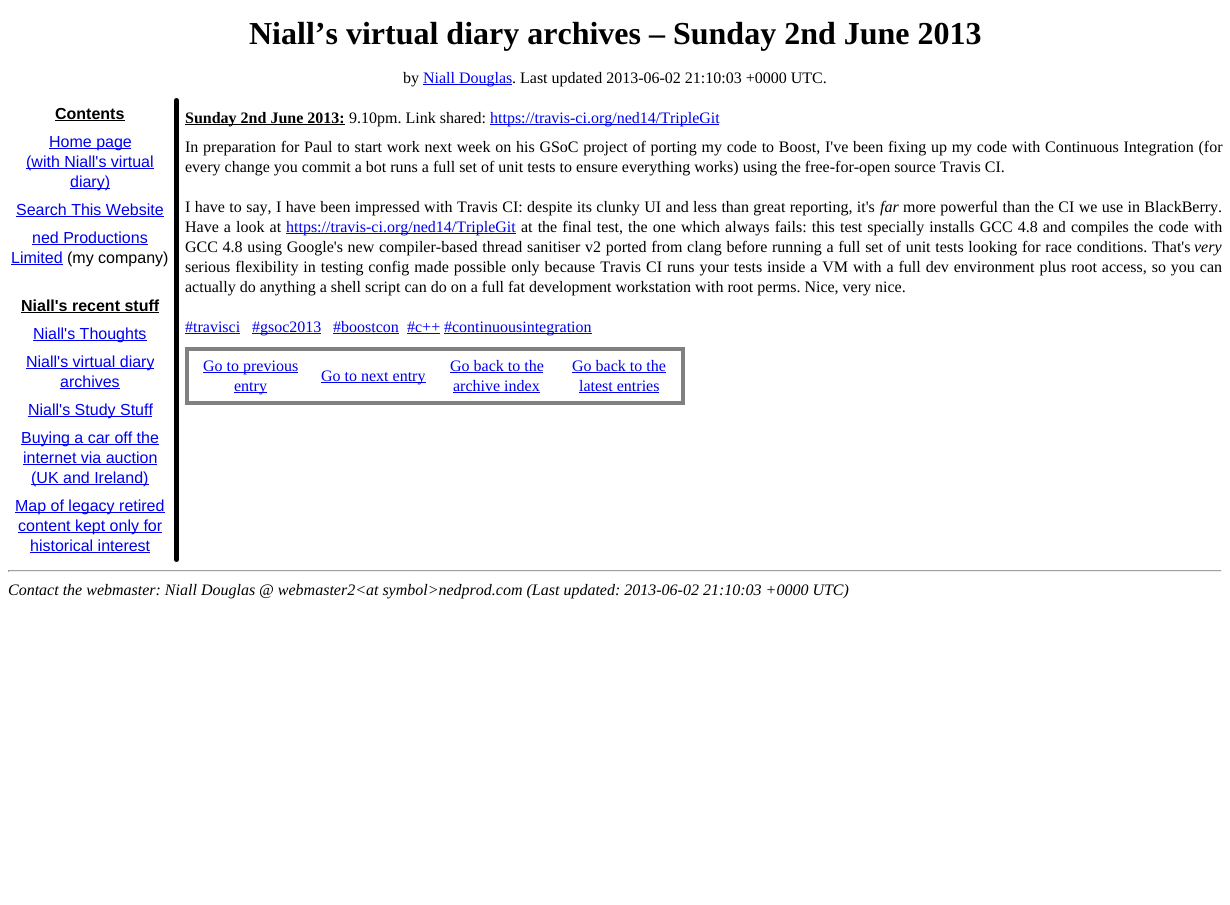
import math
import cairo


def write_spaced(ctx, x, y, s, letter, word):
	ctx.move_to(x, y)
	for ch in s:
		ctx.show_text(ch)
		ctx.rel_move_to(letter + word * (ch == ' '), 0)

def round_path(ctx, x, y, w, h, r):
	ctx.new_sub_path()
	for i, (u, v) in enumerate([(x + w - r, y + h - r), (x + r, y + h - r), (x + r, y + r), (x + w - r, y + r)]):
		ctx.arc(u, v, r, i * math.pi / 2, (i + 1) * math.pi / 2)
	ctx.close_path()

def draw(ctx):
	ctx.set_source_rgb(1, 1, 1)
	ctx.paint()
	ctx.select_font_face('Liberation Serif', cairo.FONT_SLANT_NORMAL, cairo.FONT_WEIGHT_BOLD)
	ctx.set_font_size(32)
	ctx.set_source_rgb(0, 0, 0)
	ctx.move_to(249, 44)
	ctx.show_text('Niall’s virtual diary archives – Sunday 2nd June 2013')
	ctx.select_font_face('Liberation Serif')
	ctx.set_font_size(16)
	ctx.move_to(403, 83)
	ctx.show_text('by')
	ctx.set_source_rgb(0, 0, 0.933)
	ctx.rectangle(423, 84, 89, 1)
	ctx.fill()
	ctx.move_to(423, 83)
	ctx.show_text('Niall Douglas')
	ctx.set_source_rgb(0, 0, 0)
	ctx.move_to(512, 83)
	ctx.show_text('. Last updated 2013-06-02 21:10:03 +0000 UTC.')
	ctx.select_font_face('Liberation Sans', cairo.FONT_SLANT_NORMAL, cairo.FONT_WEIGHT_BOLD)
	ctx.move_to(55, 119)
	ctx.show_text('Contents')
	ctx.rectangle(55, 120, 70, 1)
	ctx.fill()
	ctx.set_source_rgb(0, 0, 0.933)
	ctx.rectangle(49, 148, 82, 1)
	ctx.fill()
	ctx.select_font_face('Liberation Sans')
	ctx.move_to(49, 147)
	ctx.show_text('Home page')
	ctx.rectangle(26, 168, 128, 1)
	ctx.fill()
	ctx.move_to(26, 167)
	ctx.show_text('(with Niall\'s virtual')
	ctx.rectangle(70, 188, 40, 1)
	ctx.fill()
	ctx.move_to(70, 187)
	ctx.show_text('diary)')
	ctx.move_to(16, 215)
	ctx.show_text('Search This Website')
	ctx.rectangle(16, 216, 148, 1)
	ctx.fill()
	ctx.move_to(32, 243)
	ctx.show_text('ned Productions')
	ctx.rectangle(32, 244, 116, 1)
	ctx.fill()
	ctx.move_to(11, 263)
	ctx.show_text('Limited')
	ctx.rectangle(11, 264, 52, 1)
	ctx.fill()
	ctx.set_source_rgb(0, 0, 0)
	ctx.move_to(67, 263)
	ctx.show_text('(my company)')
	ctx.select_font_face('Liberation Sans', cairo.FONT_SLANT_NORMAL, cairo.FONT_WEIGHT_BOLD)
	ctx.move_to(21, 311)
	ctx.show_text('Niall\'s recent stuff')
	ctx.rectangle(21, 312, 138, 1)
	ctx.fill()
	ctx.set_source_rgb(0, 0, 0.933)
	ctx.rectangle(33, 340, 114, 1)
	ctx.fill()
	ctx.select_font_face('Liberation Sans')
	ctx.move_to(33, 339)
	ctx.show_text('Niall\'s Thoughts')
	ctx.rectangle(26, 368, 128, 1)
	ctx.fill()
	ctx.move_to(26, 367)
	ctx.show_text('Niall\'s virtual diary')
	ctx.move_to(60, 387)
	ctx.show_text('archives')
	ctx.rectangle(60, 388, 60, 1)
	ctx.fill()
	ctx.rectangle(28, 416, 124, 1)
	ctx.fill()
	ctx.move_to(28, 415)
	ctx.show_text('Niall\'s Study Stuff')
	ctx.rectangle(21, 444, 138, 1)
	ctx.fill()
	ctx.move_to(21, 443)
	ctx.show_text('Buying a car off the')
	ctx.move_to(23, 463)
	ctx.show_text('internet via auction')
	ctx.rectangle(23, 464, 134, 1)
	ctx.fill()
	ctx.rectangle(31, 484, 118, 1)
	ctx.fill()
	ctx.move_to(31, 483)
	ctx.show_text('(UK and Ireland)')
	ctx.rectangle(15, 512, 150, 1)
	ctx.fill()
	ctx.move_to(15, 511)
	ctx.show_text('Map of legacy retired')
	ctx.rectangle(18, 532, 144, 1)
	ctx.fill()
	ctx.move_to(18, 531)
	ctx.show_text('content kept only for')
	ctx.move_to(30, 551)
	ctx.show_text('historical interest')
	ctx.rectangle(30, 552, 120, 1)
	ctx.fill()
	ctx.set_source_rgb(0, 0, 0)
	round_path(ctx, 174, 98, 5, 464, 2.5)
	ctx.fill()
	ctx.rectangle(185, 124, 160, 1)
	ctx.fill()
	ctx.select_font_face('Liberation Serif', cairo.FONT_SLANT_NORMAL, cairo.FONT_WEIGHT_BOLD)
	ctx.move_to(185, 123)
	ctx.show_text('Sunday 2nd June 2013:')
	ctx.select_font_face('Liberation Serif')
	ctx.move_to(349, 123)
	ctx.show_text('9.10pm. Link shared:')
	ctx.set_source_rgb(0, 0, 0.933)
	ctx.rectangle(490, 124, 229, 1)
	ctx.fill()
	ctx.move_to(490, 123)
	ctx.show_text('https://travis-ci.org/ned14/TripleGit')
	ctx.set_source_rgb(0, 0, 0)
	write_spaced(ctx, 185, 152, 'In preparation for Paul to start work next week on his GSoC project of porting my code to Boost, I\'ve been fixing up my code with Continuous Integration (for', 0, 0.75)
	ctx.move_to(185, 172)
	ctx.show_text('every change you commit a bot runs a full set of unit tests to ensure everything works) using the free-for-open source Travis CI.')
	write_spaced(ctx, 185, 212, 'I have to say, I have been impressed with Travis CI: despite its clunky UI and less than great reporting, it\'s', 0, 0.4)
	ctx.select_font_face('Liberation Serif', cairo.FONT_SLANT_ITALIC)
	ctx.move_to(880, 212)
	ctx.show_text('far')
	ctx.select_font_face('Liberation Serif')
	write_spaced(ctx, 903, 212, 'more powerful than the CI we use in BlackBerry.', 0, 0.4)
	write_spaced(ctx, 185, 232, 'Have a look at', 0, 1.1)
	ctx.set_source_rgb(0, 0, 0.933)
	ctx.rectangle(286, 233, 230, 1)
	ctx.fill()
	ctx.move_to(286, 232)
	ctx.show_text('https://travis-ci.org/ned14/TripleGit')
	ctx.set_source_rgb(0, 0, 0)
	write_spaced(ctx, 521, 232, 'at the final test, the one which always fails: this test specially installs GCC 4.8 and compiles the code with', 0, 1.1)
	write_spaced(ctx, 185, 252, 'GCC 4.8 using Google\'s new compiler-based thread sanitiser v2 ported from clang before running a full set of unit tests looking for race conditions. That\'s', 0, 0.7)
	ctx.select_font_face('Liberation Serif', cairo.FONT_SLANT_ITALIC)
	ctx.move_to(1194, 252)
	ctx.show_text('very')
	ctx.select_font_face('Liberation Serif')
	write_spaced(ctx, 185, 272, 'serious flexibility in testing config made possible only because Travis CI runs your tests inside a VM with a full dev environment plus root access, so you can', 0, 0.95)
	ctx.move_to(185, 292)
	ctx.show_text('actually do anything a shell script can do on a full fat development workstation with root perms. Nice, very nice.')
	ctx.set_source_rgb(0, 0, 0.933)
	ctx.move_to(185, 332)
	ctx.show_text('#travisci')
	ctx.rectangle(185, 333, 55, 1)
	ctx.fill()
	ctx.rectangle(252, 333, 69, 1)
	ctx.fill()
	ctx.move_to(252, 332)
	ctx.show_text('#gsoc2013')
	ctx.move_to(333, 332)
	ctx.show_text('#boostcon')
	ctx.rectangle(333, 333, 66, 1)
	ctx.fill()
	ctx.move_to(407, 332)
	ctx.show_text('#c++')
	ctx.rectangle(407, 333, 33, 1)
	ctx.fill()
	ctx.rectangle(444, 333, 148, 1)
	ctx.fill()
	ctx.move_to(444, 332)
	ctx.show_text('#continuousintegration')
	ctx.rectangle(187, 349, 496, 54)
	ctx.set_source_rgb(0.502, 0.502, 0.502)
	ctx.set_line_width(4)
	ctx.stroke()
	ctx.set_source_rgb(0, 0, 0.933)
	ctx.rectangle(203, 372, 95, 1)
	ctx.fill()
	ctx.move_to(203, 371)
	ctx.show_text('Go to previous')
	ctx.rectangle(234, 392, 33, 1)
	ctx.fill()
	ctx.move_to(234, 391)
	ctx.show_text('entry')
	ctx.rectangle(321, 382, 105, 1)
	ctx.fill()
	ctx.move_to(321, 381)
	ctx.show_text('Go to next entry')
	ctx.move_to(450, 371)
	ctx.show_text('Go back to the')
	ctx.rectangle(450, 372, 93, 1)
	ctx.fill()
	ctx.move_to(453, 391)
	ctx.show_text('archive index')
	ctx.rectangle(453, 392, 87, 1)
	ctx.fill()
	ctx.move_to(572, 371)
	ctx.show_text('Go back to the')
	ctx.rectangle(572, 372, 94, 1)
	ctx.fill()
	ctx.move_to(579, 391)
	ctx.show_text('latest entries')
	ctx.rectangle(579, 392, 80, 1)
	ctx.fill()
	ctx.set_source_rgb(0.624, 0.624, 0.624)
	ctx.rectangle(8, 570, 1214, 1)
	ctx.fill()
	ctx.set_source_rgb(0.933, 0.933, 0.933)
	ctx.rectangle(1221, 570, 1, 2)
	ctx.rectangle(8, 571, 1214, 1)
	ctx.fill()
	ctx.set_source_rgb(0.624, 0.624, 0.624)
	ctx.rectangle(8, 570, 1, 2)
	ctx.fill()
	ctx.select_font_face('Liberation Serif', cairo.FONT_SLANT_ITALIC)
	ctx.set_source_rgb(0, 0, 0)
	ctx.move_to(8, 595)
	ctx.show_text('Contact the webmaster: Niall Douglas @ webmaster2<at symbol>nedprod.com (Last updated: 2013-06-02 21:10:03 +0000 UTC)')


surface = cairo.ImageSurface(cairo.FORMAT_RGB24, 1230, 905)
ctx = cairo.Context(surface)
options = cairo.FontOptions()
options.set_hint_metrics(cairo.HINT_METRICS_OFF)
options.set_hint_style(cairo.HINT_STYLE_NONE)
ctx.set_font_options(options)
ctx.set_miter_limit(4)
draw(ctx)
surface.write_to_png('image.png')
